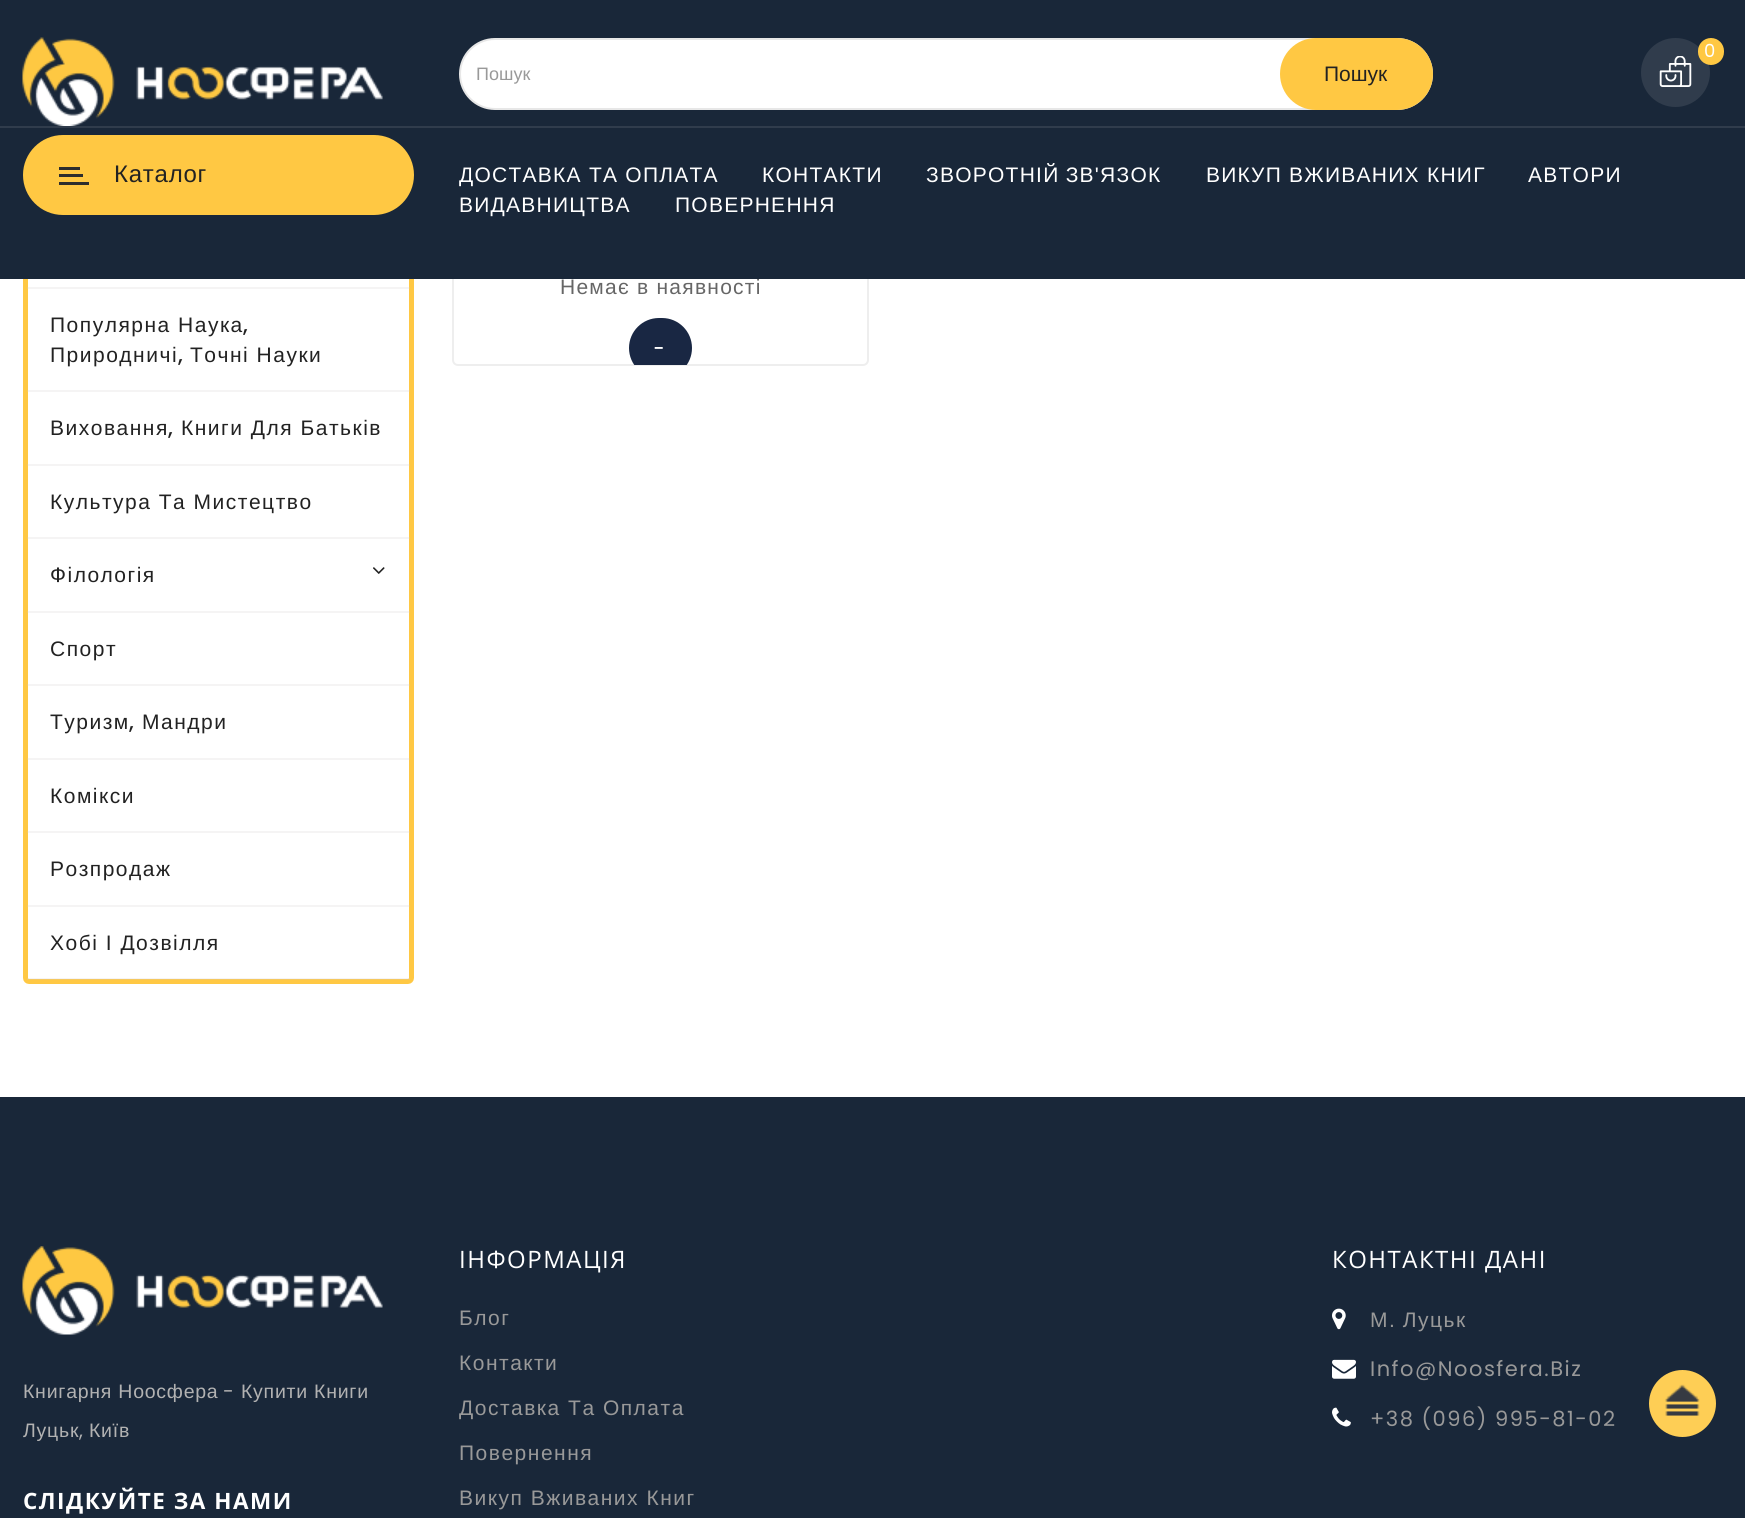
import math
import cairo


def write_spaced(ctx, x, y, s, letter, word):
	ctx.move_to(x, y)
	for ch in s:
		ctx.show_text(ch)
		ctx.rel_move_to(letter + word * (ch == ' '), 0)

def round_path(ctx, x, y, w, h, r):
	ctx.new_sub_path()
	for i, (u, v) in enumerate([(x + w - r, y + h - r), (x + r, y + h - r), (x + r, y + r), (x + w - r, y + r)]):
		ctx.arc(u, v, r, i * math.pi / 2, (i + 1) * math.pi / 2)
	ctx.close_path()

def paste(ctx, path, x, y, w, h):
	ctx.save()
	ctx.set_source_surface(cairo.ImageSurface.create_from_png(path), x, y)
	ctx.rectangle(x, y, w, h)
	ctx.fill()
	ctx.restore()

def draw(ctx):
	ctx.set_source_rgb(1, 1, 1)
	ctx.paint()
	round_path(ctx, 25.5, -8.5, 386, 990, 3.5)
	ctx.set_source_rgb(1, 0.784, 0.263)
	ctx.set_line_width(5)
	ctx.stroke()
	round_path(ctx, 453, -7, 415, 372, 5)
	ctx.set_source_rgb(0.933, 0.933, 0.933)
	ctx.set_line_width(2)
	ctx.stroke()
	ctx.select_font_face('Liberation Sans')
	ctx.set_font_size(21)
	ctx.set_source_rgb(0.4, 0.4, 0.4)
	write_spaced(ctx, 560, 294, 'Немає в наявності', 1.25, 0)
	ctx.set_source_rgb(0.098, 0.153, 0.224)
	ctx.rectangle(0, 0, 1745, 279)
	ctx.fill()
	paste(ctx, 'media/1.png', 22, 37, 361, 89)
	ctx.set_source_rgb(0.188, 0.235, 0.298)
	ctx.arc(1675.5, 72.5, 34.5, 0, 2 * math.pi)
	ctx.fill()
	paste(ctx, 'media/2.png', 1659, 56, 33, 31)
	ctx.set_source_rgb(1, 0.784, 0.263)
	round_path(ctx, 1698, 38, 26, 27, 13)
	ctx.fill()
	ctx.select_font_face('Poppins')
	ctx.set_font_size(18)
	ctx.set_source_rgb(1, 1, 1)
	write_spaced(ctx, 1704, 57, '0', 1.25, 0)
	round_path(ctx, 460, 39, 972, 70, 35)
	ctx.fill_preserve()
	ctx.set_source_rgb(0.906, 0.906, 0.906)
	ctx.stroke()
	ctx.select_font_face('Liberation Sans')
	ctx.set_source_rgb(0.6, 0.6, 0.6)
	ctx.move_to(476, 80)
	ctx.show_text('Пошук')
	ctx.set_source_rgb(1, 0.784, 0.263)
	round_path(ctx, 1280, 38, 153, 72, 36)
	ctx.fill()
	ctx.set_font_size(21)
	ctx.set_source_rgb(0.133, 0.133, 0.133)
	ctx.move_to(1324, 81)
	ctx.show_text('Пошук')
	ctx.set_source_rgb(0.188, 0.235, 0.298)
	ctx.rectangle(0, 126, 1745, 2)
	ctx.fill()
	ctx.set_source_rgb(1, 0.784, 0.263)
	round_path(ctx, 23, 135, 391, 80, 40)
	ctx.fill()
	ctx.set_source_rgb(0.176, 0.176, 0.176)
	ctx.rectangle(59, 167, 21, 3)
	ctx.rectangle(59, 174, 24, 3)
	ctx.rectangle(59, 182, 30, 3)
	ctx.fill()
	ctx.set_font_size(24)
	ctx.set_source_rgb(0.133, 0.133, 0.133)
	write_spaced(ctx, 114, 182, 'Каталог', 0.75, 0)
	ctx.set_font_size(21)
	ctx.set_source_rgb(1, 1, 1)
	write_spaced(ctx, 459, 182, 'ДОСТАВКА ТА ОПЛАТА', 1.25, 0)
	write_spaced(ctx, 762, 182, 'КОНТАКТИ', 1.25, 0)
	write_spaced(ctx, 926, 182, 'ЗВОРОТНІЙ ЗВ\'ЯЗОК', 1.25, -1)
	for x, y, s in [
		(1206, 182, 'ВИКУП ВЖИВАНИХ КНИГ'),
		(1528, 182, 'АВТОРИ'),
		(459, 212, 'ВИДАВНИЦТВА'),
		(675, 212, 'ПОВЕРНЕННЯ'),
	]:
		write_spaced(ctx, x, y, s, 1.25, 0)
	ctx.set_source_rgba(0.816, 0.796, 0.796, 0.2)
	ctx.rectangle(27, 287, 383, 2)
	ctx.fill()
	ctx.rectangle(27, 390, 383, 2)
	ctx.fill()
	ctx.set_source_rgb(0.133, 0.133, 0.133)
	write_spaced(ctx, 50, 332, 'Популярна Наука', 1.5, 0)
	ctx.select_font_face('Poppins Medium')
	write_spaced(ctx, 243, 332, ',', 1.5, 0)
	ctx.select_font_face('Liberation Sans')
	write_spaced(ctx, 50, 362, 'Природничі', 1.5, 0)
	ctx.select_font_face('Poppins Medium')
	write_spaced(ctx, 178, 362, ',', 1.5, 0)
	ctx.select_font_face('Liberation Sans')
	write_spaced(ctx, 190, 362, 'Точні Науки', 1.5, 0)
	ctx.set_source_rgba(0.816, 0.796, 0.796, 0.2)
	ctx.rectangle(27, 464, 383, 2)
	ctx.fill()
	ctx.set_source_rgb(0.133, 0.133, 0.133)
	write_spaced(ctx, 50, 435, 'Виховання', 1.5, 0)
	ctx.select_font_face('Poppins Medium')
	write_spaced(ctx, 168, 435, ',', 1.5, 0)
	ctx.select_font_face('Liberation Sans')
	write_spaced(ctx, 181, 435, 'Книги Для Батьків', 1.5, 0)
	ctx.set_source_rgba(0.816, 0.796, 0.796, 0.2)
	ctx.rectangle(27, 537, 383, 2)
	ctx.fill()
	ctx.set_source_rgb(0.133, 0.133, 0.133)
	write_spaced(ctx, 50, 509, 'Культура Та Мистецтво', 1.5, 0)
	ctx.set_source_rgba(0.816, 0.796, 0.796, 0.2)
	ctx.rectangle(27, 611, 383, 2)
	ctx.fill()
	ctx.set_source_rgb(0.133, 0.133, 0.133)
	write_spaced(ctx, 50, 582, 'Філологія', 1.5, 0)
	paste(ctx, 'media/3.png', 373, 567, 12, 7)
	ctx.set_source_rgba(0.816, 0.796, 0.796, 0.2)
	ctx.rectangle(27, 684, 383, 2)
	ctx.fill()
	ctx.set_source_rgb(0.133, 0.133, 0.133)
	write_spaced(ctx, 50, 656, 'Спорт', 1.5, 0)
	ctx.set_source_rgba(0.816, 0.796, 0.796, 0.2)
	ctx.rectangle(27, 758, 383, 2)
	ctx.fill()
	ctx.set_source_rgb(0.133, 0.133, 0.133)
	write_spaced(ctx, 50, 729, 'Туризм', 1.5, 0)
	ctx.select_font_face('Poppins Medium')
	write_spaced(ctx, 129, 729, ',', 1.5, 0)
	ctx.select_font_face('Liberation Sans')
	write_spaced(ctx, 142, 729, 'Мандри', 1.5, 0)
	ctx.set_source_rgba(0.816, 0.796, 0.796, 0.2)
	ctx.rectangle(27, 831, 383, 2)
	ctx.fill()
	ctx.set_source_rgb(0.133, 0.133, 0.133)
	write_spaced(ctx, 50, 803, 'Комікси', 1.5, 0)
	ctx.set_source_rgba(0.816, 0.796, 0.796, 0.2)
	ctx.rectangle(27, 905, 383, 2)
	ctx.fill()
	ctx.set_source_rgb(0.133, 0.133, 0.133)
	write_spaced(ctx, 50, 876, 'Розпродаж', 1.5, 0)
	ctx.set_source_rgba(0.816, 0.796, 0.796, 0.2)
	ctx.rectangle(27, 978, 383, 2)
	ctx.fill()
	ctx.set_source_rgb(0.133, 0.133, 0.133)
	write_spaced(ctx, 50, 950, 'Хобі І Дозвілля', 1.5, 0)
	ctx.save()
	ctx.rectangle(453, 95, 414, 270)
	ctx.clip()
	ctx.set_source_rgb(0.098, 0.153, 0.263)
	round_path(ctx, 629, 318, 63, 60, 30)
	ctx.fill()
	ctx.restore()
	ctx.select_font_face('Poppins Medium')
	ctx.set_font_size(19.5)
	ctx.set_source_rgb(1, 1, 1)
	write_spaced(ctx, 653, 355, '-', 1.5, 0)
	ctx.set_source_rgb(0.098, 0.153, 0.224)
	ctx.rectangle(0, 1097, 1745, 421)
	ctx.fill()
	ctx.select_font_face('Open Sans')
	ctx.set_font_size(24)
	ctx.set_source_rgb(1, 1, 1)
	write_spaced(ctx, 459, 1268, 'ІНФОРМАЦІЯ', 1.5, 0)
	ctx.select_font_face('Liberation Sans')
	ctx.set_font_size(21)
	ctx.set_source_rgb(0.6, 0.6, 0.6)
	for x, y, s in [
		(459, 1325, 'Блог'),
		(459, 1370, 'Контакти'),
		(459, 1415, 'Доставка Та Оплата'),
		(459, 1460, 'Повернення'),
		(459, 1505, 'Викуп Вживаних Книг'),
	]:
		write_spaced(ctx, x, y, s, 1.5, 0)
	ctx.select_font_face('Open Sans')
	ctx.set_font_size(24)
	ctx.set_source_rgb(1, 1, 1)
	write_spaced(ctx, 1332, 1268, 'КОНТАКТНІ ДАНІ', 1.5, 0)
	paste(ctx, 'media/4.png', 1332, 1308, 14, 22)
	ctx.select_font_face('Liberation Sans')
	ctx.set_font_size(21)
	ctx.set_source_rgb(0.6, 0.6, 0.6)
	write_spaced(ctx, 1370, 1327, 'М. Луцьк', 1.5, -1)
	paste(ctx, 'media/5.png', 1332, 1359, 24, 20)
	ctx.select_font_face('Poppins')
	write_spaced(ctx, 1370, 1376, 'Info@Noosfera.Biz', 1.5, 0)
	paste(ctx, 'media/6.png', 1332, 1407, 19, 20)
	write_spaced(ctx, 1370, 1426, '+38 (096) 995-81-02', 1.5, 0)
	paste(ctx, 'media/7.png', 22, 1246, 361, 89)
	ctx.select_font_face('Liberation Sans')
	ctx.set_font_size(19.5)
	ctx.set_source_rgb(0.698, 0.698, 0.698)
	write_spaced(ctx, 23, 1398, 'Книгарня Ноосфера', 0.75, 0)
	ctx.select_font_face('Poppins')
	write_spaced(ctx, 223, 1398, '-', 0.75, 0)
	ctx.select_font_face('Liberation Sans')
	write_spaced(ctx, 241, 1398, 'Купити Книги', 0.75, 0)
	write_spaced(ctx, 23, 1437, 'Луцьк', 0.75, 0)
	ctx.select_font_face('Poppins')
	write_spaced(ctx, 79, 1437, ',', 0.75, 0)
	ctx.select_font_face('Liberation Sans')
	write_spaced(ctx, 89, 1437, 'Київ', 0.75, 0)
	ctx.select_font_face('Open Sans', cairo.FONT_SLANT_NORMAL, cairo.FONT_WEIGHT_BOLD)
	ctx.set_font_size(22.5)
	ctx.set_source_rgb(1, 1, 1)
	write_spaced(ctx, 23, 1509, 'СЛІДКУЙТЕ ЗА НАМИ', 1.5, 0)
	ctx.set_source_rgb(0.996, 0.808, 0.333)
	ctx.new_path()
	ctx.arc(1682.5, 1403.5, 33.5, 0, 2 * math.pi)
	ctx.fill()
	paste(ctx, 'media/8.png', 1665, 1384, 35, 32)


surface = cairo.ImageSurface(cairo.FORMAT_RGB24, 1745, 1518)
ctx = cairo.Context(surface)
options = cairo.FontOptions()
options.set_hint_metrics(cairo.HINT_METRICS_OFF)
options.set_hint_style(cairo.HINT_STYLE_NONE)
ctx.set_font_options(options)
ctx.set_miter_limit(4)
draw(ctx)
surface.write_to_png('image.png')
